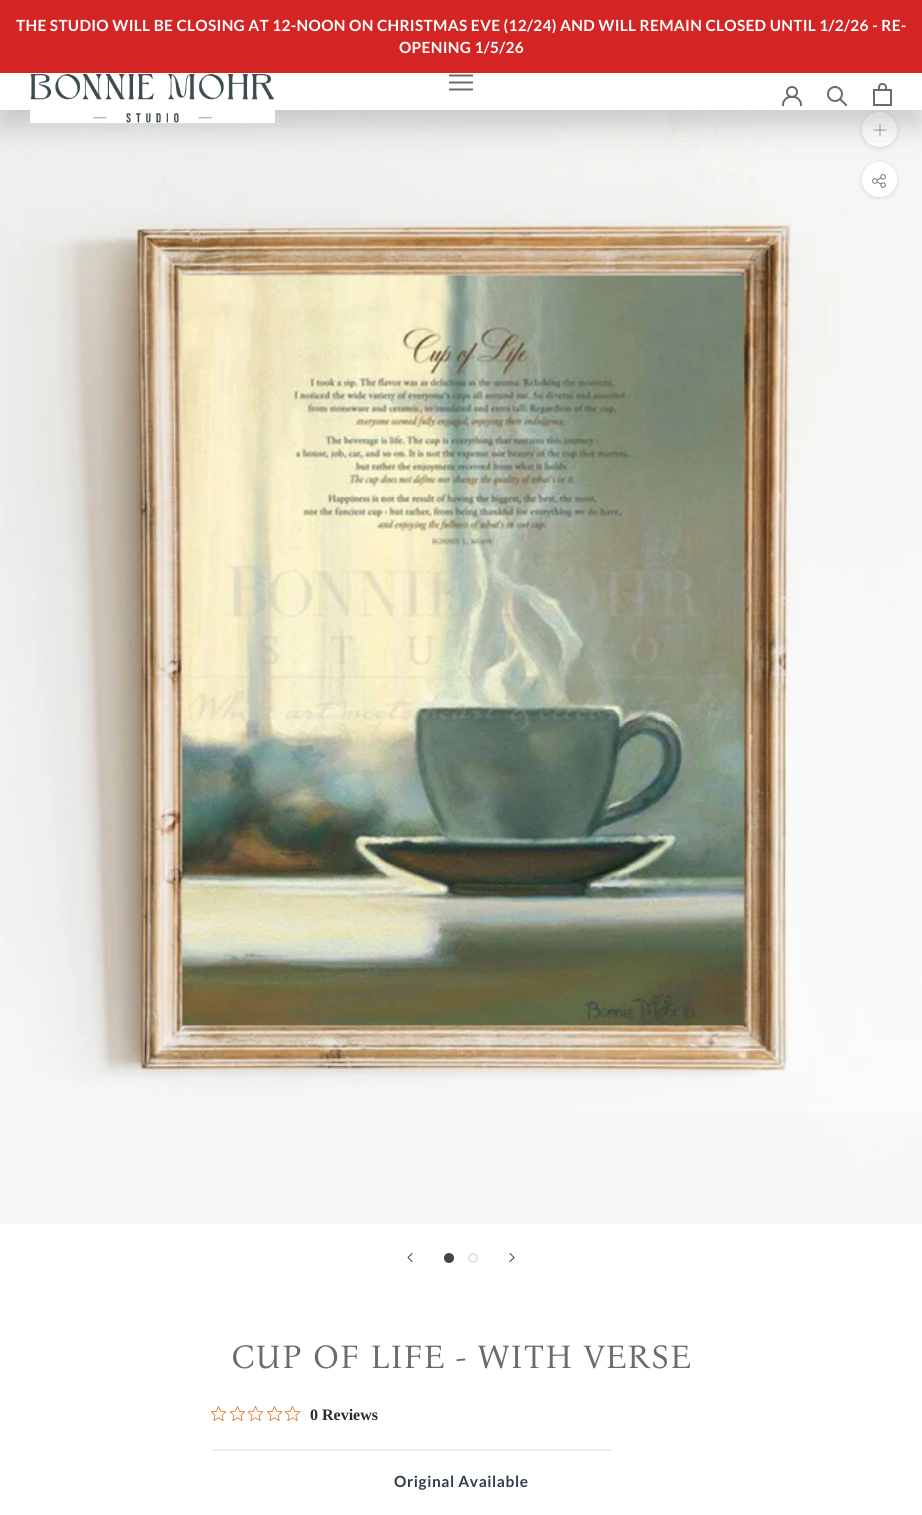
import math
import cairo


def write_spaced(ctx, x, y, s, letter, word):
	ctx.move_to(x, y)
	for ch in s:
		ctx.show_text(ch)
		ctx.rel_move_to(letter + word * (ch == ' '), 0)

def round_path(ctx, x, y, w, h, r):
	ctx.new_sub_path()
	for i, (u, v) in enumerate([(x + w - r, y + h - r), (x + r, y + h - r), (x + r, y + r), (x + w - r, y + r)]):
		ctx.arc(u, v, r, i * math.pi / 2, (i + 1) * math.pi / 2)
	ctx.close_path()

def blur_box(ctx, x, y, w, h, r, blur, alpha):
	ctx.push_group_with_content(cairo.CONTENT_ALPHA)
	ctx.set_operator(cairo.OPERATOR_SOURCE)
	for i in range(15, -16, -2):
		e = blur * i / 6
		if min(w, h) + 2 * e > 0:
			ctx.set_source_rgba(0, 0, 0, alpha * math.erfc((i - 1) / 8.5) / 2)
			round_path(ctx, x - e, y - e, w + 2 * e, h + 2 * e, max(0, min(r + e + blur * .6, min(w, h) / 2 + e)))
			ctx.fill()
	ctx.mask(ctx.pop_group())

def paste(ctx, path, x, y, w, h):
	ctx.save()
	ctx.set_source_surface(cairo.ImageSurface.create_from_png(path), x, y)
	ctx.rectangle(x, y, w, h)
	ctx.fill()
	ctx.restore()

def draw(ctx):
	ctx.set_source_rgb(1, 1, 1)
	ctx.paint()
	paste(ctx, 'media/5.png', 0, 110, 922, 1114)
	ctx.set_source_rgb(0.212, 0.212, 0.212)
	blur_box(ctx, 862, 113, 35, 35, 17.5, 2.5, 0.15)
	ctx.set_source_rgb(1, 1, 1)
	ctx.arc(879.5, 129.5, 17.5, 0, 2 * math.pi)
	ctx.fill()
	ctx.new_path()
	ctx.move_to(880, 124)
	ctx.line_to(880, 136)
	ctx.set_source_rgb(0.596, 0.62, 0.651)
	ctx.set_line_width(0.9)
	ctx.set_line_cap(cairo.LINE_CAP_SQUARE)
	ctx.stroke()
	ctx.new_path()
	ctx.move_to(874, 130)
	ctx.line_to(886, 130)
	ctx.set_source_rgba(0.188, 0.239, 0.302, 0.5)
	ctx.stroke()
	ctx.set_source_rgb(0.212, 0.212, 0.212)
	blur_box(ctx, 862, 163, 35, 35, 17.5, 2.5, 0.15)
	ctx.set_source_rgb(1, 1, 1)
	ctx.arc(879.5, 179.5, 17.5, 0, 2 * math.pi)
	ctx.fill()
	ctx.set_source_rgb(0, 0, 0)
	blur_box(ctx, 0, 67, 922, 58, 0, 15, 0.18)
	ctx.set_source_rgb(0.835, 0.141, 0.141)
	ctx.rectangle(0, 0, 922, 73)
	ctx.fill()
	ctx.select_font_face('Lato', cairo.FONT_SLANT_NORMAL, cairo.FONT_WEIGHT_BOLD)
	ctx.set_font_size(15.4)
	ctx.set_source_rgb(1, 1, 1)
	write_spaced(ctx, 16, 31, 'THE STUDIO WILL BE CLOSING AT 12-NOON ON CHRISTMAS EVE (12/24) AND WILL REMAIN CLOSED UNTIL 1/2/26 - RE-', 0.31, 0)
	write_spaced(ctx, 399, 53, 'OPENING 1/5/26', 0.31, 0)
	ctx.rectangle(0, 73, 922, 37)
	ctx.fill()
	paste(ctx, 'media/1.png', 30, 73, 245, 50)
	paste(ctx, 'media/2.png', 449, 74, 24, 17)
	ctx.new_path()
	ctx.move_to(783, 105)
	ctx.curve_to(783, 94, 801, 94, 801, 105)
	ctx.set_source_rgb(0.42, 0.42, 0.42)
	ctx.set_line_width(2)
	ctx.stroke()
	ctx.arc(792, 92, 5, 0, 2 * math.pi)
	ctx.set_line_cap(cairo.LINE_CAP_BUTT)
	ctx.stroke()
	ctx.new_path()
	ctx.move_to(846, 105)
	ctx.line_to(840.5, 99.5)
	ctx.set_line_cap(cairo.LINE_CAP_SQUARE)
	ctx.stroke()
	ctx.arc(835, 94, 7, 0, 2 * math.pi)
	ctx.set_line_cap(cairo.LINE_CAP_BUTT)
	ctx.stroke()
	paste(ctx, 'media/3.png', 873, 83, 19, 23)
	paste(ctx, 'media/4.png', 872, 174, 14, 14)
	ctx.new_path()
	ctx.move_to(412, 1261.5)
	ctx.line_to(408, 1257.5)
	ctx.line_to(412, 1253.5)
	ctx.set_source_rgb(0.271, 0.271, 0.271)
	ctx.set_line_width(1)
	ctx.set_line_cap(cairo.LINE_CAP_SQUARE)
	ctx.stroke()
	ctx.arc(449, 1258, 4, 0, 2 * math.pi)
	ctx.fill_preserve()
	ctx.set_line_width(2)
	ctx.set_line_cap(cairo.LINE_CAP_BUTT)
	ctx.stroke()
	ctx.arc(473, 1258, 4, 0, 2 * math.pi)
	ctx.set_source_rgb(0.89, 0.89, 0.89)
	ctx.stroke()
	ctx.new_path()
	ctx.move_to(510, 1261.5)
	ctx.line_to(514, 1257.5)
	ctx.line_to(510, 1253.5)
	ctx.set_source_rgb(0.271, 0.271, 0.271)
	ctx.set_line_width(1)
	ctx.set_line_cap(cairo.LINE_CAP_SQUARE)
	ctx.stroke()
	ctx.select_font_face('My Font')
	ctx.set_font_size(33.6)
	ctx.set_source_rgb(0.42, 0.42, 0.42)
	write_spaced(ctx, 231, 1368, 'CUP OF LIFE - WITH VERSE', 0.7, 0)
	paste(ctx, 'media/6.png', 211, 1406, 15, 15)
	paste(ctx, 'media/6.png', 230, 1406, 15, 15)
	paste(ctx, 'media/6.png', 248, 1406, 15, 15)
	paste(ctx, 'media/6.png', 267, 1406, 15, 15)
	paste(ctx, 'media/6.png', 285, 1406, 15, 15)
	ctx.select_font_face('Liberation Serif', cairo.FONT_SLANT_NORMAL, cairo.FONT_WEIGHT_BOLD)
	ctx.set_font_size(16)
	ctx.set_source_rgb(0.173, 0.173, 0.173)
	ctx.move_to(310, 1420)
	ctx.show_text('0 Reviews')
	ctx.set_source_rgb(0.949, 0.937, 0.918)
	ctx.rectangle(211, 1449, 400, 2)
	ctx.fill()
	ctx.select_font_face('Lato', cairo.FONT_SLANT_NORMAL, cairo.FONT_WEIGHT_BOLD)
	ctx.set_font_size(15.4)
	ctx.set_source_rgb(0.188, 0.239, 0.302)
	write_spaced(ctx, 394, 1487, 'Original Available', 0.6, 0)


surface = cairo.ImageSurface(cairo.FORMAT_RGB24, 922, 1515)
ctx = cairo.Context(surface)
options = cairo.FontOptions()
options.set_hint_metrics(cairo.HINT_METRICS_OFF)
options.set_hint_style(cairo.HINT_STYLE_NONE)
ctx.set_font_options(options)
ctx.set_miter_limit(4)
draw(ctx)
surface.write_to_png('image.png')
